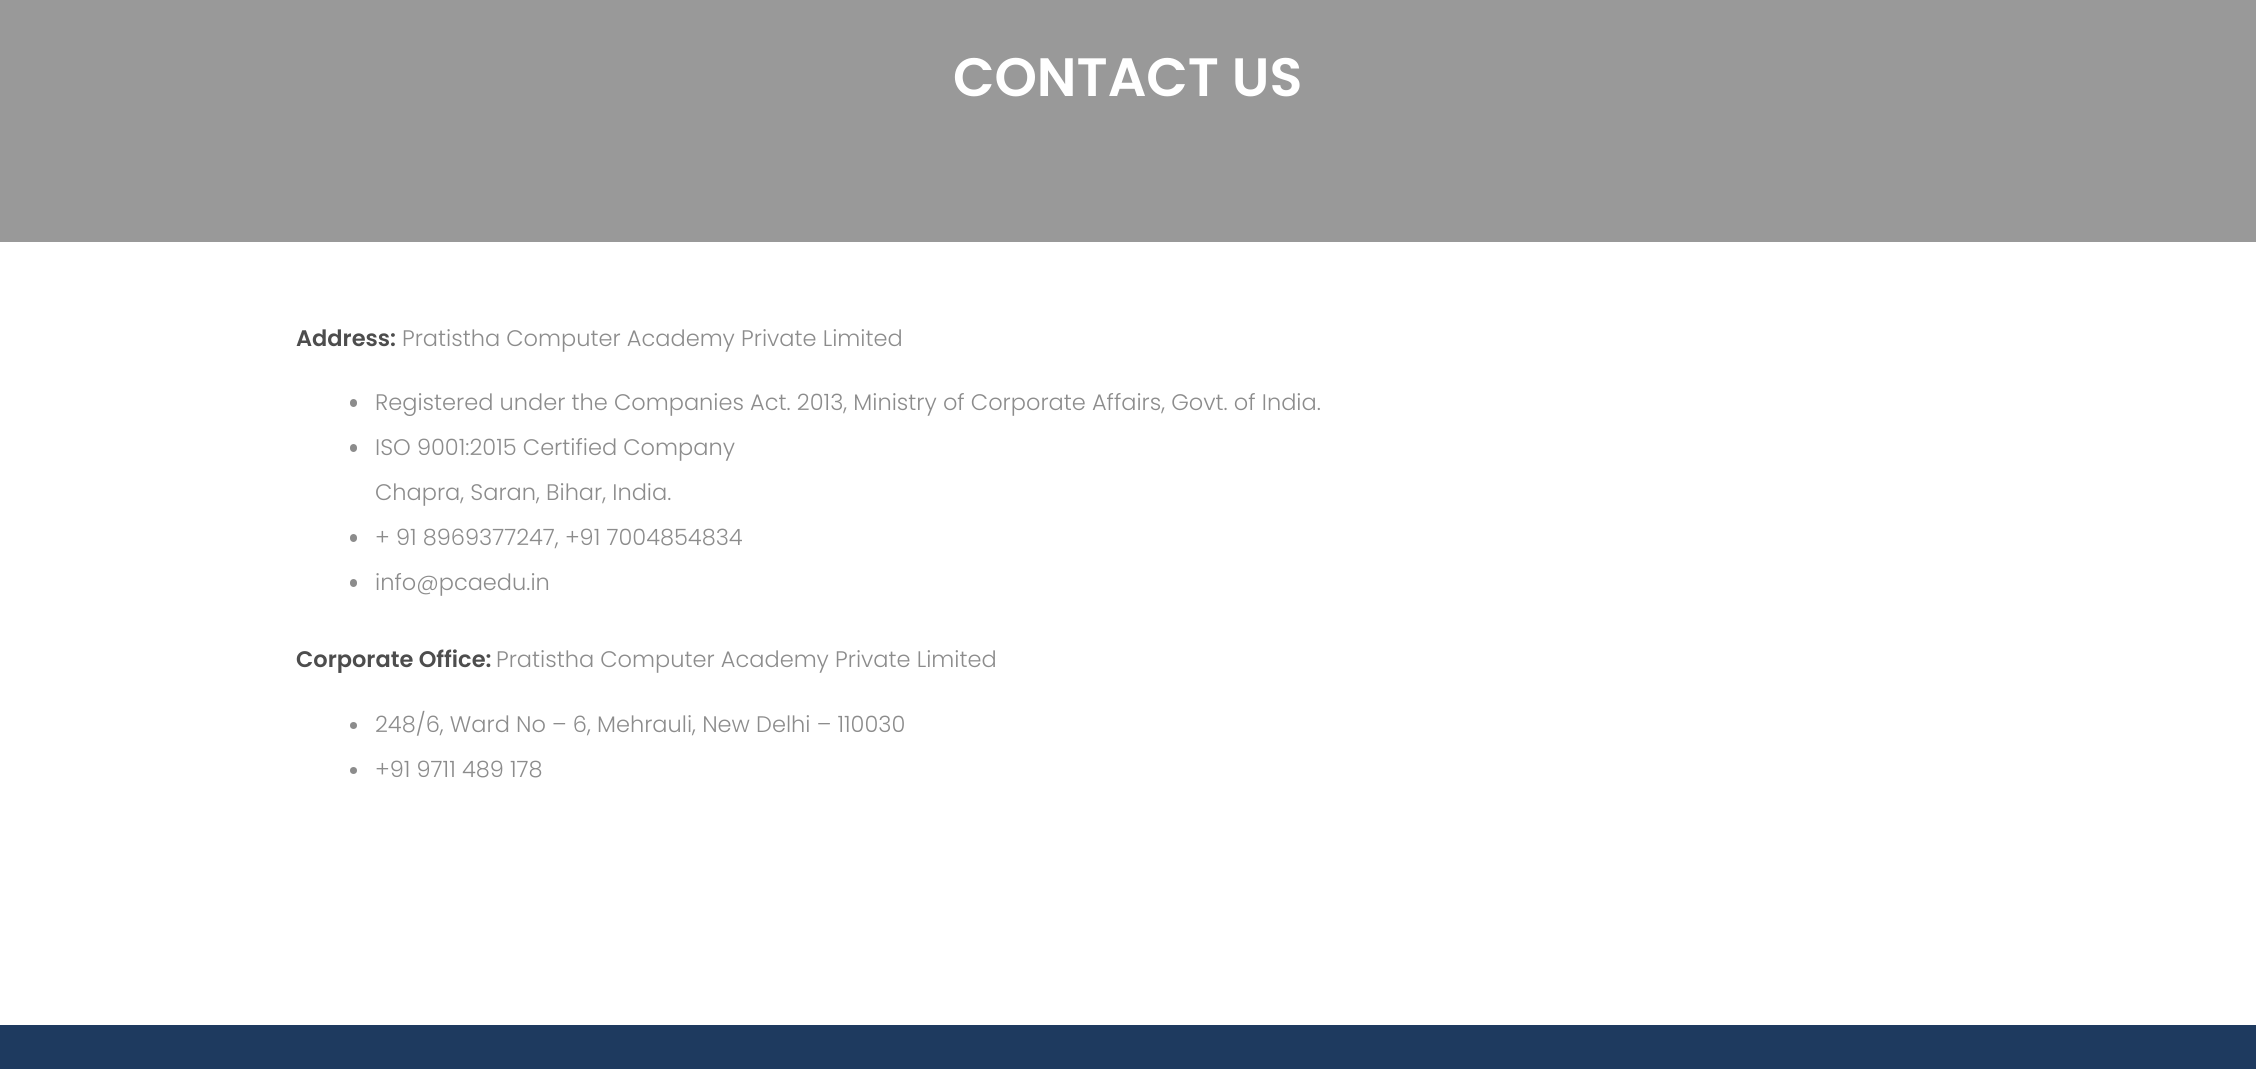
import math
import cairo


def round_path(ctx, x, y, w, h, r):
	ctx.new_sub_path()
	for i, (u, v) in enumerate([(x + w - r, y + h - r), (x + r, y + h - r), (x + r, y + r), (x + w - r, y + r)]):
		ctx.arc(u, v, r, i * math.pi / 2, (i + 1) * math.pi / 2)
	ctx.close_path()

def draw(ctx):
	ctx.set_source_rgb(1, 1, 1)
	ctx.paint()
	ctx.set_source_rgb(0.6, 0.6, 0.6)
	ctx.rectangle(0, 0, 2256, 242)
	ctx.fill()
	ctx.select_font_face('Poppins SemiBold')
	ctx.set_font_size(54)
	ctx.set_source_rgb(1, 1, 1)
	ctx.move_to(953, 96)
	ctx.show_text('CONTACT US')
	ctx.set_font_size(22.5)
	ctx.set_source_rgb(0.302, 0.302, 0.302)
	ctx.move_to(296, 346)
	ctx.show_text('Address:')
	ctx.select_font_face('Poppins Light')
	ctx.set_source_rgb(0.549, 0.549, 0.549)
	ctx.move_to(402, 346)
	ctx.show_text('Pratistha Computer Academy Private Limited')
	round_path(ctx, 350, 399, 7, 8, 3.5)
	ctx.fill()
	ctx.move_to(375, 410)
	ctx.show_text('Registered under the Companies Act. 2013, Ministry of Corporate Affairs, Govt. of India.')
	round_path(ctx, 350, 444, 7, 8, 3.5)
	ctx.fill()
	ctx.move_to(375, 455)
	ctx.show_text('ISO 9001:2015 Certified Company')
	ctx.move_to(375, 500)
	ctx.show_text('Chapra, Saran, Bihar, India.')
	round_path(ctx, 350, 534, 7, 8, 3.5)
	ctx.fill()
	ctx.move_to(375, 545)
	ctx.show_text('+ 91 8969377247, +91 7004854834')
	round_path(ctx, 350, 579, 7, 8, 3.5)
	ctx.fill()
	ctx.move_to(375, 590)
	ctx.show_text('info@pcaedu.in')
	ctx.select_font_face('Poppins SemiBold')
	ctx.set_source_rgb(0.302, 0.302, 0.302)
	ctx.move_to(296, 667)
	ctx.show_text('Corporate Office:')
	ctx.select_font_face('Poppins Light')
	ctx.set_source_rgb(0.549, 0.549, 0.549)
	ctx.move_to(496, 667)
	ctx.show_text('Pratistha Computer Academy Private Limited')
	ctx.new_path()
	ctx.arc(353.5, 725.5, 3.5, 0, 2 * math.pi)
	ctx.fill()
	ctx.move_to(375, 732)
	ctx.show_text('248/6, Ward No – 6, Mehrauli, New Delhi – 110030')
	ctx.new_path()
	ctx.arc(353.5, 770.5, 3.5, 0, 2 * math.pi)
	ctx.fill()
	ctx.move_to(375, 777)
	ctx.show_text('+91 9711 489 178')
	ctx.set_source_rgb(0.118, 0.227, 0.373)
	ctx.rectangle(0, 1025, 2256, 44)
	ctx.fill()


surface = cairo.ImageSurface(cairo.FORMAT_RGB24, 2256, 1069)
ctx = cairo.Context(surface)
options = cairo.FontOptions()
options.set_hint_metrics(cairo.HINT_METRICS_OFF)
options.set_hint_style(cairo.HINT_STYLE_NONE)
ctx.set_font_options(options)
ctx.set_miter_limit(4)
draw(ctx)
surface.write_to_png('image.png')
